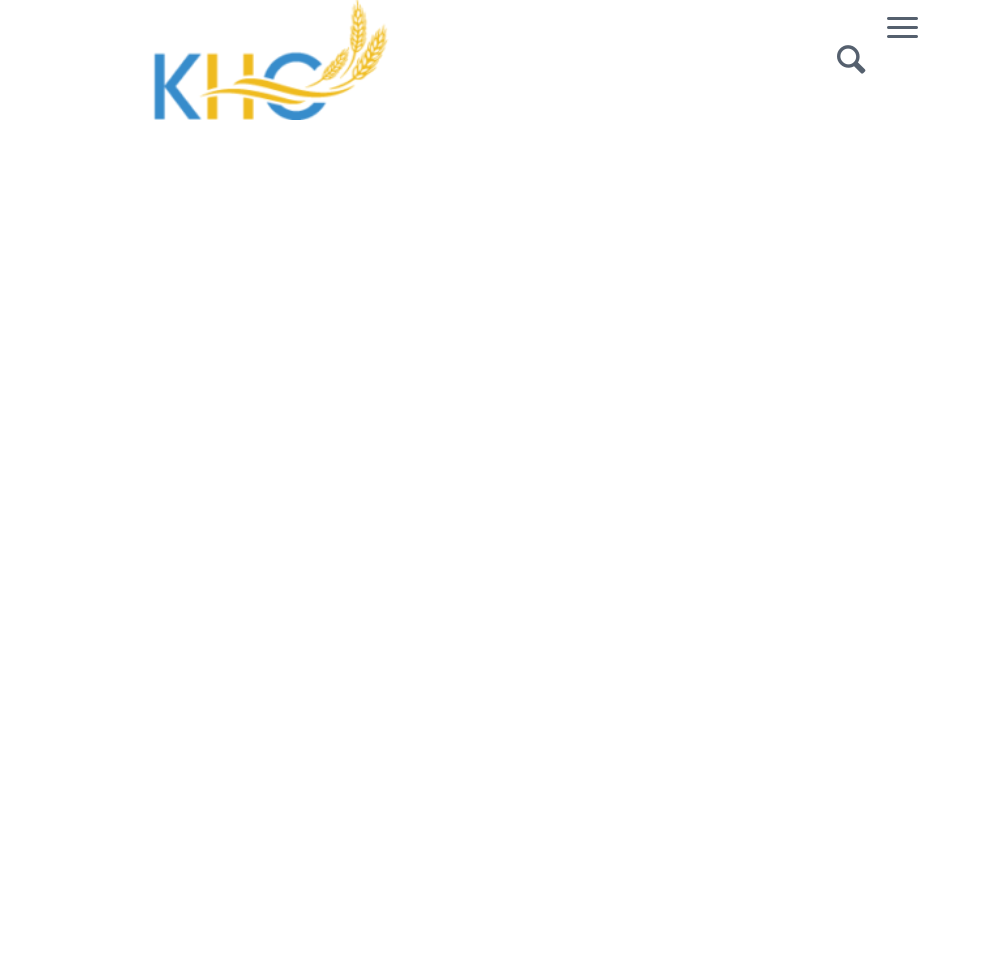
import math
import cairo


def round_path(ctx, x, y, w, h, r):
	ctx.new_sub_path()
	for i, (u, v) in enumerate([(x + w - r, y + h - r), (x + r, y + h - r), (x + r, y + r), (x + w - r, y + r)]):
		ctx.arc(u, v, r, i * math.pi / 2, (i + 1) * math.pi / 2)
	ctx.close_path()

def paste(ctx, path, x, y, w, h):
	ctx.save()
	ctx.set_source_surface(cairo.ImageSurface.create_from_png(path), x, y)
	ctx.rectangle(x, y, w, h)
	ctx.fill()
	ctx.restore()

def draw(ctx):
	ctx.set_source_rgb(1, 1, 1)
	ctx.paint()
	paste(ctx, 'media/1.png', 153, 0, 236, 120)
	ctx.set_source_rgb(0.333, 0.376, 0.431)
	round_path(ctx, 887, 26, 31, 3, 1.5)
	ctx.fill()
	round_path(ctx, 887, 17, 31, 3, 1.5)
	ctx.fill()
	round_path(ctx, 887, 35, 31, 3, 1.5)
	ctx.fill()
	paste(ctx, 'media/2.png', 837, 45, 29, 29)


surface = cairo.ImageSurface(cairo.FORMAT_RGB24, 992, 974)
ctx = cairo.Context(surface)
options = cairo.FontOptions()
options.set_hint_metrics(cairo.HINT_METRICS_OFF)
options.set_hint_style(cairo.HINT_STYLE_NONE)
ctx.set_font_options(options)
ctx.set_miter_limit(4)
draw(ctx)
surface.write_to_png('image.png')
